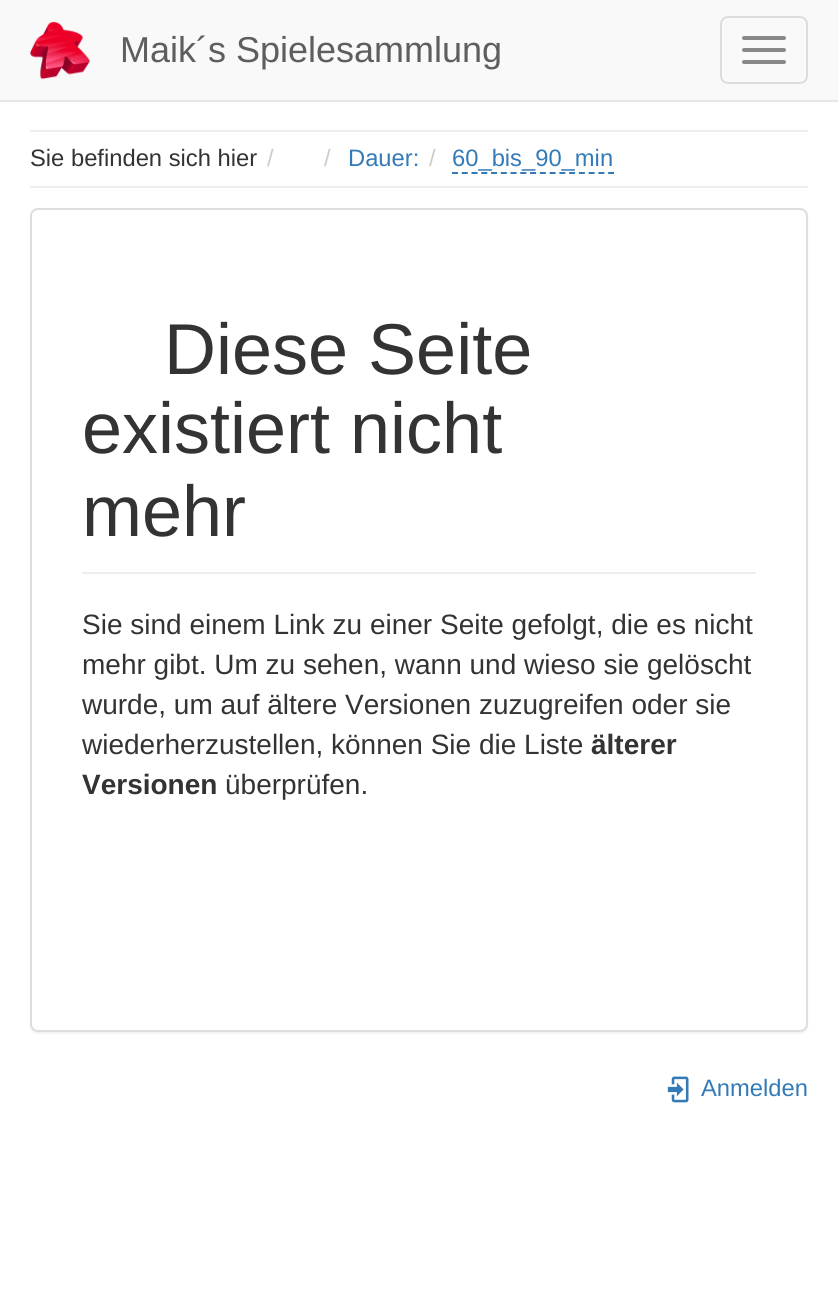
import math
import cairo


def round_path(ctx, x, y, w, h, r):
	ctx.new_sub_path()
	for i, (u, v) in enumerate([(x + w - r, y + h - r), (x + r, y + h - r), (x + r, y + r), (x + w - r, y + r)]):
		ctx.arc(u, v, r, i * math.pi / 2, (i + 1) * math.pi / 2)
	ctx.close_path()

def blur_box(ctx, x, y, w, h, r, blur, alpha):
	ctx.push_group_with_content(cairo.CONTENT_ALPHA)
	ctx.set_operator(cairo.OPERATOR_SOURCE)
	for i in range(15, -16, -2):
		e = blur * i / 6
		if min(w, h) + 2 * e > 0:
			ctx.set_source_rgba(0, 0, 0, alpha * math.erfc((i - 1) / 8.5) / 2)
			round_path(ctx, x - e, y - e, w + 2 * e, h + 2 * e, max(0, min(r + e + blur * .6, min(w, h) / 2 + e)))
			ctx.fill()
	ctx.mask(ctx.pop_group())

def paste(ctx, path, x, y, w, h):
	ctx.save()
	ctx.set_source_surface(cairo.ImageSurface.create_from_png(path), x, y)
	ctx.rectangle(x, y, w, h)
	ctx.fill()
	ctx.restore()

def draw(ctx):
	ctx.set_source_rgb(1, 1, 1)
	ctx.paint()
	ctx.set_source_rgb(0.973, 0.973, 0.973)
	ctx.rectangle(0, 0, 838, 100)
	ctx.fill()
	ctx.set_source_rgb(0.906, 0.906, 0.906)
	ctx.rectangle(0, 100, 838, 2)
	ctx.fill()
	paste(ctx, 'media/1.png', 30, 21, 60, 59)
	ctx.select_font_face('Liberation Sans')
	ctx.set_font_size(36)
	ctx.set_source_rgb(0.369, 0.369, 0.369)
	ctx.move_to(120, 62)
	ctx.show_text('Maik´s Spielesammlung')
	round_path(ctx, 721, 17, 86, 66, 7)
	ctx.set_source_rgb(0.867, 0.867, 0.867)
	ctx.stroke()
	ctx.set_source_rgb(0.533, 0.533, 0.533)
	round_path(ctx, 742, 36, 44, 4, 2)
	ctx.fill()
	round_path(ctx, 742, 48, 44, 4, 2)
	ctx.fill()
	round_path(ctx, 742, 60, 44, 4, 2)
	ctx.fill()
	ctx.set_source_rgb(0.933, 0.933, 0.933)
	ctx.rectangle(30, 130, 778, 2)
	ctx.fill()
	ctx.set_font_size(23.75)
	ctx.set_source_rgb(0.2, 0.2, 0.2)
	ctx.move_to(30, 166)
	ctx.show_text('Sie befinden sich hier')
	ctx.set_source_rgb(0.8, 0.8, 0.8)
	ctx.move_to(267, 166)
	ctx.show_text('/')
	ctx.move_to(324, 166)
	ctx.show_text('/')
	ctx.set_source_rgb(0.2, 0.478, 0.718)
	ctx.move_to(348, 166)
	ctx.show_text('Dauer:')
	ctx.set_source_rgb(0.8, 0.8, 0.8)
	ctx.move_to(429, 166)
	ctx.show_text('/')
	ctx.set_source_rgb(0.2, 0.478, 0.718)
	ctx.move_to(452, 166)
	ctx.show_text('60_bis_90_min')
	ctx.new_path()
	ctx.move_to(452, 173)
	ctx.line_to(614, 173)
	ctx.set_dash([6, 3.76])
	ctx.stroke()
	ctx.set_source_rgb(0.933, 0.933, 0.933)
	ctx.rectangle(30, 186, 778, 2)
	ctx.fill()
	ctx.set_source_rgb(0, 0, 0)
	blur_box(ctx, 30, 210, 778, 824, 8, 1, 0.05)
	ctx.set_source_rgb(1, 1, 1)
	round_path(ctx, 31, 209, 776, 822, 7)
	ctx.fill_preserve()
	ctx.set_source_rgb(0.867, 0.867, 0.867)
	ctx.set_dash([])
	ctx.stroke()
	ctx.set_source_rgb(0.933, 0.933, 0.933)
	ctx.rectangle(82, 572, 674, 2)
	ctx.fill()
	ctx.set_font_size(72)
	ctx.set_source_rgb(0.2, 0.2, 0.2)
	for x, y, s in [
		(164, 374, 'Diese Seite'),
		(82, 453, 'existiert nicht'),
		(82, 536, 'mehr'),
	]:
		ctx.move_to(x, y)
		ctx.show_text(s)
	ctx.set_font_size(28)
	for x, y, s in [
		(82, 634, 'Sie sind einem Link zu einer Seite gefolgt, die es nicht'),
		(82, 674, 'mehr gibt. Um zu sehen, wann und wieso sie gelöscht'),
		(82, 714, 'wurde, um auf ältere Versionen zuzugreifen oder sie'),
		(82, 754, 'wiederherzustellen, können Sie die Liste'),
	]:
		ctx.move_to(x, y)
		ctx.show_text(s)
	ctx.select_font_face('Liberation Sans', cairo.FONT_SLANT_NORMAL, cairo.FONT_WEIGHT_BOLD)
	ctx.move_to(591, 754)
	ctx.show_text('älterer')
	ctx.move_to(82, 794)
	ctx.show_text('Versionen')
	ctx.select_font_face('Liberation Sans')
	ctx.move_to(225, 794)
	ctx.show_text('überprüfen.')
	paste(ctx, 'media/2.png', 667, 1076, 22, 27)
	ctx.set_font_size(23.75)
	ctx.set_source_rgb(0.2, 0.478, 0.718)
	ctx.move_to(701, 1096)
	ctx.show_text('Anmelden')


surface = cairo.ImageSurface(cairo.FORMAT_RGB24, 838, 1302)
ctx = cairo.Context(surface)
options = cairo.FontOptions()
options.set_hint_metrics(cairo.HINT_METRICS_OFF)
options.set_hint_style(cairo.HINT_STYLE_NONE)
ctx.set_font_options(options)
ctx.set_miter_limit(4)
draw(ctx)
surface.write_to_png('image.png')
